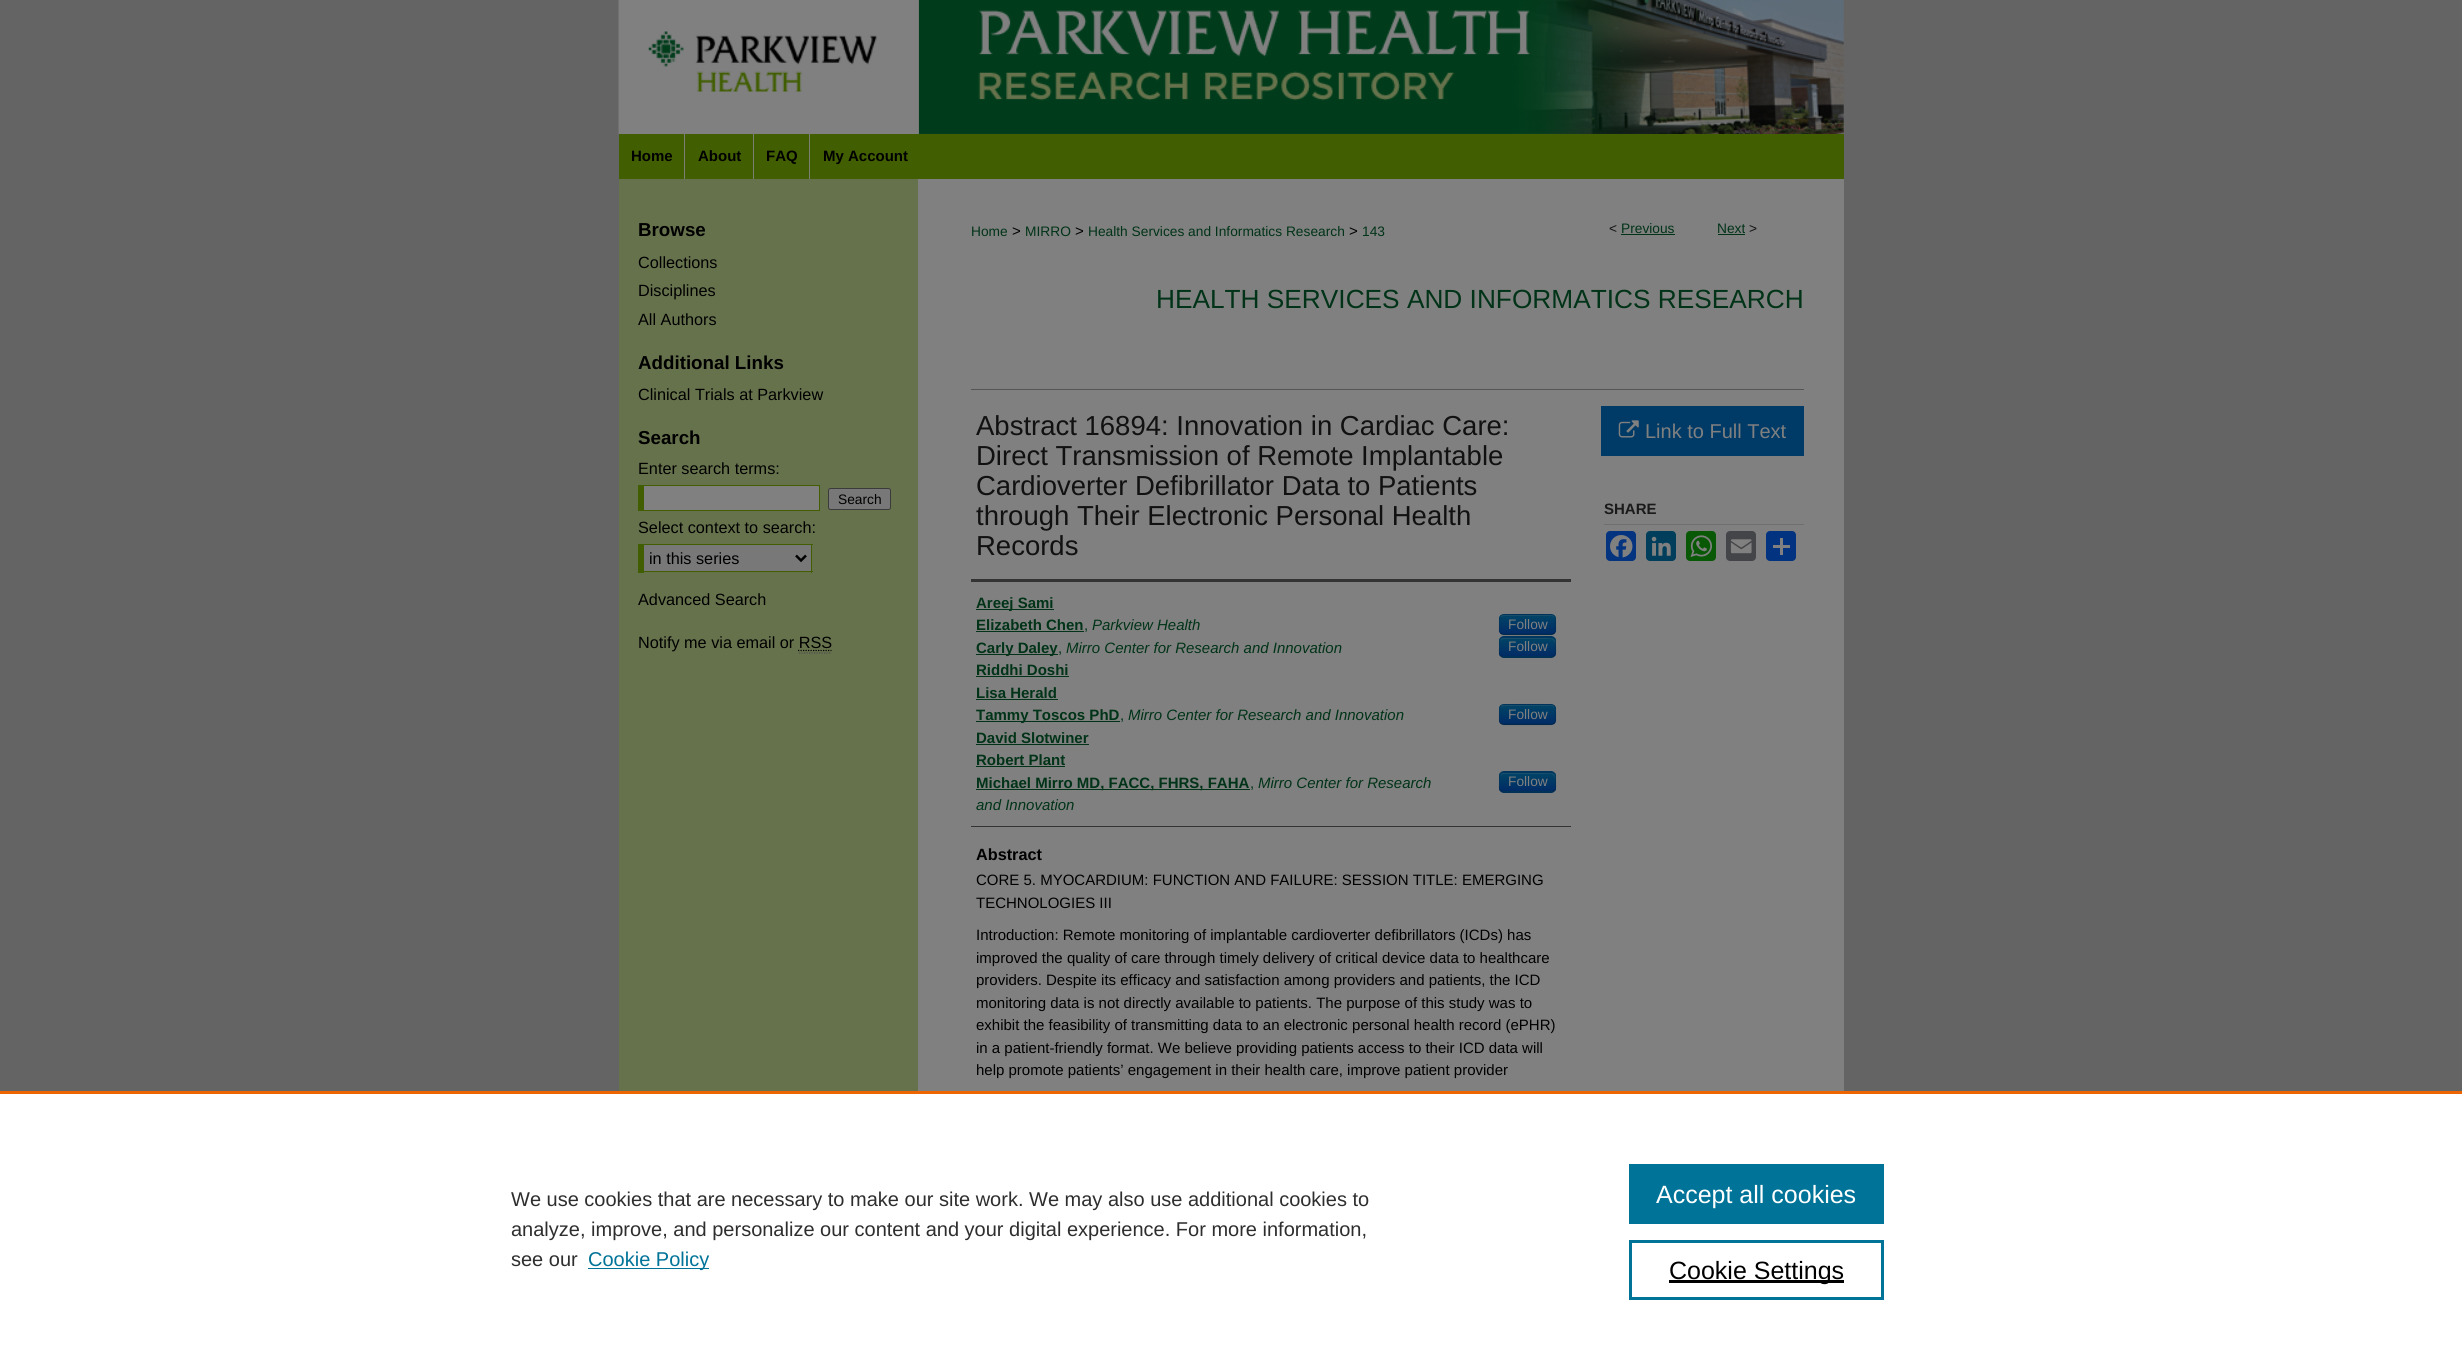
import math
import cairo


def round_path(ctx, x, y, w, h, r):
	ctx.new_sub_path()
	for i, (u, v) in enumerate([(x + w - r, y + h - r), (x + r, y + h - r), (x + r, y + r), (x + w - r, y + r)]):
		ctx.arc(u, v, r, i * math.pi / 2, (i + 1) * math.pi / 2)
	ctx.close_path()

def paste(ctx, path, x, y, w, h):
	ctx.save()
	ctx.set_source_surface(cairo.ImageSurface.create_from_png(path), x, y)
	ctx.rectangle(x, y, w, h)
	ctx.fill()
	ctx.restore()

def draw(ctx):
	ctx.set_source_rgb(0.392, 0.392, 0.392)
	ctx.paint()
	paste(ctx, 'media/1.png', 618, 0, 1226, 134)
	paste(ctx, 'media/2.png', 618, 0, 301, 134)
	ctx.set_source_rgb(0.255, 0.373, 0)
	ctx.rectangle(619, 134, 1225, 45)
	ctx.fill()
	ctx.set_source_rgb(0.486, 0.494, 0.471)
	ctx.rectangle(684, 134, 1, 45)
	ctx.fill()
	ctx.select_font_face('Liberation Sans', cairo.FONT_SLANT_NORMAL, cairo.FONT_WEIGHT_BOLD)
	ctx.set_font_size(15)
	ctx.set_source_rgb(0, 0, 0)
	ctx.move_to(631, 161)
	ctx.show_text('Home')
	ctx.set_source_rgb(0.486, 0.494, 0.471)
	ctx.rectangle(753, 134, 1, 45)
	ctx.fill()
	ctx.set_source_rgb(0, 0, 0)
	ctx.move_to(698, 161)
	ctx.show_text('About')
	ctx.set_source_rgb(0.486, 0.494, 0.471)
	ctx.rectangle(809, 134, 1, 45)
	ctx.fill()
	ctx.set_source_rgb(0, 0, 0)
	ctx.move_to(766, 161)
	ctx.show_text('FAQ')
	ctx.move_to(823, 161)
	ctx.show_text('My Account')
	ctx.set_source_rgb(0.4, 0.447, 0.298)
	ctx.rectangle(619, 179, 299, 912)
	ctx.fill()
	ctx.set_source_rgb(0.502, 0.502, 0.502)
	ctx.rectangle(918, 179, 926, 912)
	ctx.fill()
	ctx.set_font_size(18.75)
	ctx.set_source_rgb(0, 0, 0)
	ctx.move_to(638, 236)
	ctx.show_text('Browse')
	ctx.select_font_face('Liberation Sans')
	ctx.set_font_size(16.25)
	for x, y, s in [
		(638, 268, 'Collections'),
		(638, 296, 'Disciplines'),
		(638, 325, 'All Authors'),
	]:
		ctx.move_to(x, y)
		ctx.show_text(s)
	ctx.select_font_face('Liberation Sans', cairo.FONT_SLANT_NORMAL, cairo.FONT_WEIGHT_BOLD)
	ctx.set_font_size(18.75)
	ctx.move_to(638, 369)
	ctx.show_text('Additional Links')
	ctx.select_font_face('Liberation Sans')
	ctx.set_font_size(16.25)
	ctx.move_to(638, 400)
	ctx.show_text('Clinical Trials at Parkview')
	ctx.select_font_face('Liberation Sans', cairo.FONT_SLANT_NORMAL, cairo.FONT_WEIGHT_BOLD)
	ctx.set_font_size(18.75)
	ctx.move_to(638, 444)
	ctx.show_text('Search')
	ctx.select_font_face('Liberation Sans')
	ctx.set_font_size(16.25)
	ctx.move_to(638, 474)
	ctx.show_text('Enter search terms:')
	ctx.set_source_rgb(0.502, 0.502, 0.502)
	ctx.rectangle(644, 486, 175, 24)
	ctx.fill()
	ctx.set_source_rgb(0.255, 0.373, 0)
	ctx.rectangle(638, 485, 182, 1)
	ctx.rectangle(819, 485, 1, 26)
	ctx.rectangle(638, 510, 182, 1)
	ctx.rectangle(638, 485, 6, 26)
	ctx.fill()
	ctx.set_source_rgb(0.471, 0.471, 0.471)
	round_path(ctx, 828.5, 488.5, 62, 21, 2)
	ctx.fill_preserve()
	ctx.set_source_rgb(0.231, 0.231, 0.231)
	ctx.set_line_width(1)
	ctx.stroke()
	ctx.set_font_size(13.75)
	ctx.set_source_rgb(0, 0, 0)
	ctx.move_to(838, 504)
	ctx.show_text('Search')
	ctx.set_font_size(16.25)
	ctx.move_to(638, 533)
	ctx.show_text('Select context to search:')
	ctx.set_source_rgb(0.471, 0.471, 0.471)
	ctx.rectangle(644, 545, 167, 26)
	ctx.fill()
	ctx.set_source_rgb(0.255, 0.373, 0)
	ctx.rectangle(638, 544, 175, 1)
	ctx.rectangle(811, 544, 1, 29)
	ctx.rectangle(638, 571, 175, 1)
	ctx.rectangle(638, 544, 6, 29)
	ctx.fill()
	ctx.new_path()
	ctx.move_to(796, 555.5)
	ctx.line_to(801, 560.5)
	ctx.line_to(806, 555.5)
	ctx.set_source_rgb(0, 0, 0)
	ctx.set_line_width(2.5)
	ctx.stroke()
	for x, y, s in [
		(649, 564, 'in this series'),
		(638, 605, 'Advanced Search'),
		(638, 648, 'Notify me via email or RSS'),
	]:
		ctx.move_to(x, y)
		ctx.show_text(s)
	ctx.new_path()
	ctx.move_to(798, 650.5)
	ctx.line_to(831.5, 650.5)
	ctx.set_line_width(1.2)
	ctx.set_dash([1.25, 1.25])
	ctx.stroke()
	ctx.new_path()
	ctx.move_to(799, 653)
	ctx.line_to(831, 653)
	ctx.set_source_rgb(0.302, 0.302, 0.302)
	ctx.stroke()
	ctx.set_font_size(13.75)
	ctx.set_source_rgb(0, 0.2, 0.09)
	ctx.move_to(971, 236)
	ctx.show_text('Home')
	ctx.set_font_size(15)
	ctx.set_source_rgb(0, 0, 0)
	ctx.move_to(1012, 236)
	ctx.show_text('>')
	ctx.set_font_size(13.75)
	ctx.set_source_rgb(0, 0.2, 0.09)
	ctx.move_to(1025, 236)
	ctx.show_text('MIRRO')
	ctx.set_font_size(15)
	ctx.set_source_rgb(0, 0, 0)
	ctx.move_to(1075, 236)
	ctx.show_text('>')
	ctx.set_font_size(13.75)
	ctx.set_source_rgb(0, 0.2, 0.09)
	ctx.move_to(1088, 236)
	ctx.show_text('Health Services and Informatics Research')
	ctx.set_font_size(15)
	ctx.set_source_rgb(0, 0, 0)
	ctx.move_to(1349, 236)
	ctx.show_text('>')
	ctx.set_font_size(13.75)
	ctx.set_source_rgb(0, 0.2, 0.09)
	ctx.move_to(1362, 236)
	ctx.show_text('143')
	ctx.set_source_rgb(0.067, 0.067, 0.067)
	ctx.move_to(1609, 233)
	ctx.show_text('<')
	ctx.set_source_rgb(0, 0.2, 0.09)
	ctx.move_to(1621, 233)
	ctx.show_text('Previous')
	ctx.rectangle(1621, 234, 54, 1)
	ctx.fill()
	ctx.move_to(1717, 233)
	ctx.show_text('Next')
	ctx.rectangle(1718, 234, 27, 1)
	ctx.fill()
	ctx.set_source_rgb(0.067, 0.067, 0.067)
	ctx.move_to(1749, 233)
	ctx.show_text('>')
	ctx.set_font_size(26.25)
	ctx.set_source_rgb(0, 0.2, 0.09)
	ctx.move_to(1156, 308)
	ctx.show_text('HEALTH SERVICES AND INFORMATICS RESEARCH')
	ctx.set_source_rgb(0.333, 0.333, 0.333)
	ctx.rectangle(971, 389, 833, 1)
	ctx.fill()
	ctx.set_font_size(27.5)
	ctx.set_source_rgb(0.067, 0.067, 0.067)
	for x, y, s in [
		(976, 435, 'Abstract 16894: Innovation in Cardiac Care:'),
		(976, 465, 'Direct Transmission of Remote Implantable'),
		(976, 495, 'Cardioverter Defibrillator Data to Patients'),
		(976, 525, 'through Their Electronic Personal Health'),
		(976, 555, 'Records'),
	]:
		ctx.move_to(x, y)
		ctx.show_text(s)
	ctx.set_source_rgb(0.2, 0.2, 0.2)
	ctx.rectangle(971, 579, 600, 3)
	ctx.rectangle(971, 826, 600, 1)
	ctx.fill()
	ctx.set_source_rgb(0, 0.2, 0.09)
	ctx.rectangle(976, 609, 78, 1)
	ctx.fill()
	ctx.select_font_face('Liberation Sans', cairo.FONT_SLANT_NORMAL, cairo.FONT_WEIGHT_BOLD)
	ctx.set_font_size(15)
	ctx.move_to(976, 608)
	ctx.show_text('Areej Sami')
	ctx.move_to(976, 630)
	ctx.show_text('Elizabeth Chen')
	ctx.rectangle(976, 631, 108, 1)
	ctx.fill()
	ctx.select_font_face('Liberation Sans')
	ctx.move_to(1084, 630)
	ctx.show_text(',')
	ctx.select_font_face('Liberation Sans', cairo.FONT_SLANT_ITALIC)
	ctx.move_to(1092, 630)
	ctx.show_text('Parkview Health')
	ctx.set_source_rgb(0, 0.227, 0.4)
	round_path(ctx, 1499, 614, 57, 21, 5)
	ctx.fill()
	ctx.save()
	round_path(ctx, 1499, 614, 57, 21, 5)
	ctx.clip()
	gradient = cairo.LinearGradient(1528, 615, 1528, 634)
	gradient.add_color_stop_rgba(0, 0, 0.267, 0.4, 1)
	gradient.add_color_stop_rgba(1, 0, 0.169, 0.4, 1)
	ctx.set_source(gradient)
	ctx.rectangle(1499, 615, 57, 19)
	ctx.fill()
	ctx.restore()
	ctx.set_source_rgba(0.502, 0.502, 0.502, 0.2)
	ctx.new_path()
	ctx.move_to(1504, 616)
	ctx.line_to(1548, 616)
	ctx.curve_to(1555, 615, 1555, 618, 1555, 624)
	ctx.line_to(1555, 631)
	ctx.line_to(1555, 623)
	ctx.curve_to(1555, 613, 1553, 615, 1543, 615)
	ctx.line_to(1512, 615)
	ctx.curve_to(1502, 615, 1500, 613, 1500, 623)
	ctx.line_to(1500, 632)
	ctx.curve_to(1500, 629, 1499, 619, 1501, 617)
	ctx.close_path()
	ctx.fill()
	ctx.new_path()
	ctx.move_to(1554.5, 633)
	ctx.curve_to(1553.5, 634, 1552.5, 634.5, 1551, 634.5)
	ctx.line_to(1504, 634.5)
	ctx.curve_to(1502.5, 634.5, 1501.5, 634, 1500.5, 633)
	ctx.set_source_rgba(0, 0, 0, 0.25)
	ctx.set_dash([])
	ctx.stroke()
	ctx.new_path()
	ctx.move_to(1500.5, 633)
	ctx.curve_to(1498.5, 631, 1499.5, 627, 1499.5, 624.5)
	ctx.curve_to(1499.5, 613.5, 1500, 614.5, 1511.5, 614.5)
	ctx.line_to(1543.5, 614.5)
	ctx.curve_to(1555, 614.5, 1555.5, 613.5, 1555.5, 624.5)
	ctx.curve_to(1555.5, 627, 1556.5, 631, 1554.5, 633)
	ctx.set_source_rgba(0, 0, 0, 0.1)
	ctx.stroke()
	ctx.select_font_face('Liberation Sans')
	ctx.set_font_size(13.75)
	ctx.set_source_rgb(0.502, 0.502, 0.502)
	ctx.move_to(1508, 629)
	ctx.show_text('Follow')
	ctx.set_source_rgb(0, 0.2, 0.09)
	ctx.rectangle(976, 654, 82, 1)
	ctx.fill()
	ctx.select_font_face('Liberation Sans', cairo.FONT_SLANT_NORMAL, cairo.FONT_WEIGHT_BOLD)
	ctx.set_font_size(15)
	ctx.move_to(976, 653)
	ctx.show_text('Carly Daley')
	ctx.select_font_face('Liberation Sans')
	ctx.move_to(1058, 653)
	ctx.show_text(',')
	ctx.select_font_face('Liberation Sans', cairo.FONT_SLANT_ITALIC)
	ctx.move_to(1066, 653)
	ctx.show_text('Mirro Center for Research and Innovation')
	ctx.set_source_rgb(0, 0.227, 0.4)
	round_path(ctx, 1499, 636, 57, 22, 5)
	ctx.fill()
	ctx.save()
	round_path(ctx, 1499, 636, 57, 22, 5)
	ctx.clip()
	gradient = cairo.LinearGradient(1528, 638, 1528, 656)
	gradient.add_color_stop_rgba(0, 0, 0.267, 0.4, 1)
	gradient.add_color_stop_rgba(1, 0, 0.169, 0.4, 1)
	ctx.set_source(gradient)
	ctx.rectangle(1499, 638, 57, 18)
	ctx.fill()
	ctx.restore()
	ctx.set_source_rgba(0.502, 0.502, 0.502, 0.2)
	ctx.new_path()
	ctx.move_to(1504, 639)
	ctx.line_to(1551, 639)
	ctx.line_to(1553, 640)
	ctx.curve_to(1556, 642, 1555, 649, 1555, 652)
	ctx.curve_to(1555, 639, 1558, 638, 1543, 638)
	ctx.line_to(1512, 638)
	ctx.curve_to(1503, 638, 1500, 636, 1500, 645)
	ctx.line_to(1500, 653)
	ctx.curve_to(1500, 650, 1498, 639, 1504, 639)
	ctx.close_path()
	ctx.fill()
	ctx.new_path()
	ctx.move_to(1554.5, 655.5)
	ctx.curve_to(1553.5, 656.5, 1552.5, 657, 1551, 657)
	ctx.line_to(1504, 657)
	ctx.curve_to(1502.5, 657, 1501.5, 656.5, 1500.5, 655.5)
	ctx.set_source_rgba(0, 0, 0, 0.25)
	ctx.stroke()
	ctx.new_path()
	ctx.move_to(1500.5, 655.5)
	ctx.curve_to(1498.5, 653.5, 1499.5, 649.5, 1499.5, 647)
	ctx.curve_to(1499.5, 636, 1500, 637, 1511.5, 637)
	ctx.line_to(1543.5, 637)
	ctx.curve_to(1555, 637, 1555.5, 636, 1555.5, 647)
	ctx.curve_to(1555.5, 649.5, 1556.5, 653.5, 1554.5, 655.5)
	ctx.set_source_rgba(0, 0, 0, 0.1)
	ctx.stroke()
	ctx.select_font_face('Liberation Sans')
	ctx.set_font_size(13.75)
	ctx.set_source_rgb(0.502, 0.502, 0.502)
	ctx.move_to(1508, 651)
	ctx.show_text('Follow')
	ctx.select_font_face('Liberation Sans', cairo.FONT_SLANT_NORMAL, cairo.FONT_WEIGHT_BOLD)
	ctx.set_font_size(15)
	ctx.set_source_rgb(0, 0.2, 0.09)
	ctx.move_to(976, 675)
	ctx.show_text('Riddhi Doshi')
	ctx.rectangle(976, 676, 93, 1)
	ctx.fill()
	ctx.move_to(976, 698)
	ctx.show_text('Lisa Herald')
	ctx.rectangle(976, 699, 82, 1)
	ctx.fill()
	ctx.rectangle(976, 721, 144, 1)
	ctx.fill()
	ctx.move_to(976, 720)
	ctx.show_text('Tammy Toscos PhD')
	ctx.select_font_face('Liberation Sans')
	ctx.move_to(1120, 720)
	ctx.show_text(',')
	ctx.select_font_face('Liberation Sans', cairo.FONT_SLANT_ITALIC)
	ctx.move_to(1128, 720)
	ctx.show_text('Mirro Center for Research and Innovation')
	ctx.set_source_rgb(0, 0.227, 0.4)
	round_path(ctx, 1499, 704, 57, 21, 5)
	ctx.fill()
	ctx.save()
	round_path(ctx, 1499, 704, 57, 21, 5)
	ctx.clip()
	gradient = cairo.LinearGradient(1528, 705, 1528, 724)
	gradient.add_color_stop_rgba(0, 0, 0.267, 0.4, 1)
	gradient.add_color_stop_rgba(1, 0, 0.169, 0.4, 1)
	ctx.set_source(gradient)
	ctx.rectangle(1499, 705, 57, 19)
	ctx.fill()
	ctx.restore()
	ctx.set_source_rgba(0.502, 0.502, 0.502, 0.2)
	ctx.new_path()
	ctx.move_to(1504, 706)
	ctx.line_to(1548, 706)
	ctx.curve_to(1555, 705, 1555, 708, 1555, 714)
	ctx.line_to(1555, 721)
	ctx.line_to(1555, 713)
	ctx.curve_to(1555, 703, 1553, 705, 1543, 705)
	ctx.line_to(1512, 705)
	ctx.curve_to(1502, 705, 1500, 703, 1500, 713)
	ctx.line_to(1500, 722)
	ctx.curve_to(1500, 719, 1499, 709, 1501, 707)
	ctx.close_path()
	ctx.fill()
	ctx.new_path()
	ctx.move_to(1554.5, 723)
	ctx.curve_to(1553.5, 724, 1552.5, 724.5, 1551, 724.5)
	ctx.line_to(1504, 724.5)
	ctx.curve_to(1502.5, 724.5, 1501.5, 724, 1500.5, 723)
	ctx.set_source_rgba(0, 0, 0, 0.25)
	ctx.stroke()
	ctx.new_path()
	ctx.move_to(1500.5, 723)
	ctx.curve_to(1498.5, 721, 1499.5, 717, 1499.5, 714.5)
	ctx.curve_to(1499.5, 703.5, 1500, 704.5, 1511.5, 704.5)
	ctx.line_to(1543.5, 704.5)
	ctx.curve_to(1555, 704.5, 1555.5, 703.5, 1555.5, 714.5)
	ctx.curve_to(1555.5, 717, 1556.5, 721, 1554.5, 723)
	ctx.set_source_rgba(0, 0, 0, 0.1)
	ctx.stroke()
	ctx.select_font_face('Liberation Sans')
	ctx.set_font_size(13.75)
	ctx.set_source_rgb(0.502, 0.502, 0.502)
	ctx.move_to(1508, 719)
	ctx.show_text('Follow')
	ctx.select_font_face('Liberation Sans', cairo.FONT_SLANT_NORMAL, cairo.FONT_WEIGHT_BOLD)
	ctx.set_font_size(15)
	ctx.set_source_rgb(0, 0.2, 0.09)
	ctx.move_to(976, 743)
	ctx.show_text('David Slotwiner')
	ctx.rectangle(976, 744, 113, 1)
	ctx.fill()
	ctx.move_to(976, 765)
	ctx.show_text('Robert Plant')
	ctx.rectangle(976, 766, 89, 1)
	ctx.fill()
	ctx.rectangle(976, 789, 274, 1)
	ctx.fill()
	ctx.move_to(976, 788)
	ctx.show_text('Michael Mirro MD, FACC, FHRS, FAHA')
	ctx.select_font_face('Liberation Sans')
	ctx.move_to(1250, 788)
	ctx.show_text(',')
	ctx.select_font_face('Liberation Sans', cairo.FONT_SLANT_ITALIC)
	ctx.move_to(1258, 788)
	ctx.show_text('Mirro Center for Research')
	ctx.move_to(976, 810)
	ctx.show_text('and Innovation')
	ctx.set_source_rgb(0, 0.227, 0.4)
	round_path(ctx, 1499, 771, 57, 22, 5)
	ctx.fill()
	ctx.save()
	round_path(ctx, 1499, 771, 57, 22, 5)
	ctx.clip()
	gradient = cairo.LinearGradient(1528, 773, 1528, 791)
	gradient.add_color_stop_rgba(0, 0, 0.267, 0.4, 1)
	gradient.add_color_stop_rgba(1, 0, 0.169, 0.4, 1)
	ctx.set_source(gradient)
	ctx.rectangle(1499, 773, 57, 18)
	ctx.fill()
	ctx.restore()
	ctx.set_source_rgba(0.502, 0.502, 0.502, 0.2)
	ctx.new_path()
	ctx.move_to(1504, 774)
	ctx.line_to(1551, 774)
	ctx.line_to(1553, 775)
	ctx.curve_to(1556, 777, 1555, 784, 1555, 787)
	ctx.curve_to(1555, 774, 1558, 773, 1543, 773)
	ctx.line_to(1512, 773)
	ctx.curve_to(1503, 773, 1500, 771, 1500, 780)
	ctx.line_to(1500, 789)
	ctx.curve_to(1500, 785, 1498, 774, 1504, 774)
	ctx.close_path()
	ctx.fill()
	ctx.new_path()
	ctx.move_to(1554.5, 790.5)
	ctx.curve_to(1553.5, 791.5, 1552.5, 792, 1551, 792)
	ctx.line_to(1504, 792)
	ctx.curve_to(1502.5, 792, 1501.5, 791.5, 1500.5, 790.5)
	ctx.set_source_rgba(0, 0, 0, 0.25)
	ctx.stroke()
	ctx.new_path()
	ctx.move_to(1500.5, 790.5)
	ctx.curve_to(1498.5, 788.5, 1499.5, 784.5, 1499.5, 782)
	ctx.curve_to(1499.5, 771, 1500, 772, 1511.5, 772)
	ctx.line_to(1543.5, 772)
	ctx.curve_to(1555, 772, 1555.5, 771, 1555.5, 782)
	ctx.curve_to(1555.5, 784.5, 1556.5, 788.5, 1554.5, 790.5)
	ctx.set_source_rgba(0, 0, 0, 0.1)
	ctx.stroke()
	ctx.select_font_face('Liberation Sans')
	ctx.set_font_size(13.75)
	ctx.set_source_rgb(0.502, 0.502, 0.502)
	ctx.move_to(1508, 786)
	ctx.show_text('Follow')
	ctx.select_font_face('Liberation Sans', cairo.FONT_SLANT_NORMAL, cairo.FONT_WEIGHT_BOLD)
	ctx.set_font_size(16.25)
	ctx.set_source_rgb(0, 0, 0)
	ctx.move_to(976, 860)
	ctx.show_text('Abstract')
	ctx.select_font_face('Liberation Sans')
	ctx.set_font_size(15)
	for x, y, s in [
		(976, 885, 'CORE 5. MYOCARDIUM: FUNCTION AND FAILURE: SESSION TITLE: EMERGING'),
		(976, 908, 'TECHNOLOGIES III'),
		(976, 940, 'Introduction: Remote monitoring of implantable cardioverter defibrillators (ICDs) has'),
		(976, 963, 'improved the quality of care through timely delivery of critical device data to healthcare'),
		(976, 985, 'providers. Despite its efficacy and satisfaction among providers and patients, the ICD'),
		(976, 1008, 'monitoring data is not directly available to patients. The purpose of this study was to'),
		(976, 1030, 'exhibit the feasibility of transmitting data to an electronic personal health record (ePHR)'),
		(976, 1053, 'in a patient-friendly format. We believe providing patients access to their ICD data will'),
		(976, 1075, 'help promote patients’ engagement in their health care, improve patient provider'),
	]:
		ctx.move_to(x, y)
		ctx.show_text(s)
	ctx.set_source_rgb(0, 0.227, 0.4)
	ctx.rectangle(1601, 406, 203, 50)
	ctx.fill()
	paste(ctx, 'media/3.png', 1618, 420, 21, 18)
	ctx.set_font_size(20)
	ctx.set_source_rgb(0.502, 0.502, 0.502)
	ctx.move_to(1645, 438)
	ctx.show_text('Link to Full Text')
	ctx.set_source_rgb(0.435, 0.435, 0.435)
	ctx.rectangle(1604, 524, 200, 1)
	ctx.fill()
	ctx.select_font_face('Liberation Sans', cairo.FONT_SLANT_NORMAL, cairo.FONT_WEIGHT_BOLD)
	ctx.set_font_size(15)
	ctx.set_source_rgb(0.102, 0.102, 0.102)
	ctx.move_to(1604, 514)
	ctx.show_text('SHARE')
	ctx.set_source_rgb(0.016, 0.2, 0.502)
	round_path(ctx, 1606, 531, 30, 30, 4)
	ctx.fill()
	paste(ctx, 'media/4.png', 1610, 535, 23, 23)
	ctx.set_source_rgb(0, 0.243, 0.357)
	round_path(ctx, 1646, 531, 30, 30, 4)
	ctx.fill()
	paste(ctx, 'media/5.png', 1651, 536, 20, 20)
	ctx.set_source_rgb(0.035, 0.345, 0.02)
	round_path(ctx, 1686, 531, 30, 30, 4)
	ctx.fill()
	paste(ctx, 'media/6.png', 1690, 535, 22, 22)
	ctx.set_source_rgb(0.267, 0.271, 0.282)
	round_path(ctx, 1726, 531, 30, 30, 4)
	ctx.fill()
	paste(ctx, 'media/7.png', 1730, 539, 22, 15)
	ctx.set_source_rgb(0.004, 0.2, 0.502)
	round_path(ctx, 1766, 531, 30, 30, 4)
	ctx.fill()
	ctx.set_source_rgb(0.502, 0.502, 0.502)
	ctx.rectangle(1780, 538, 3, 17)
	ctx.rectangle(1773, 545, 17, 3)
	ctx.fill()
	ctx.set_source_rgb(1, 1, 1)
	ctx.rectangle(0, 1094, 2462, 272)
	ctx.fill()
	ctx.set_source_rgb(0.922, 0.396, 0)
	ctx.rectangle(0, 1091, 2462, 3)
	ctx.fill()
	ctx.select_font_face('Liberation Sans')
	ctx.set_font_size(20)
	ctx.set_source_rgb(0.18, 0.18, 0.18)
	for x, y, s in [
		(511, 1206, 'We use cookies that are necessary to make our site work. We may also use additional cookies to'),
		(511, 1236, 'analyze, improve, and personalize our content and your digital experience. For more information,'),
		(511, 1266, 'see our'),
	]:
		ctx.move_to(x, y)
		ctx.show_text(s)
	ctx.set_source_rgb(0, 0.451, 0.596)
	ctx.rectangle(588, 1268, 121, 1)
	ctx.fill()
	ctx.move_to(588, 1266)
	ctx.show_text('Cookie Policy')
	ctx.rectangle(1629, 1164, 255, 60)
	ctx.fill()
	ctx.set_font_size(25)
	ctx.set_source_rgb(1, 1, 1)
	ctx.move_to(1656, 1203)
	ctx.show_text('Accept all cookies')
	ctx.rectangle(1630.5, 1241.5, 252, 57)
	ctx.set_source_rgb(0, 0.451, 0.596)
	ctx.set_line_width(3)
	ctx.stroke()
	ctx.set_source_rgb(0, 0, 0)
	ctx.rectangle(1669, 1280, 175, 3)
	ctx.fill()
	ctx.move_to(1669, 1279)
	ctx.show_text('Cookie Settings')


surface = cairo.ImageSurface(cairo.FORMAT_RGB24, 2462, 1366)
ctx = cairo.Context(surface)
options = cairo.FontOptions()
options.set_hint_metrics(cairo.HINT_METRICS_OFF)
options.set_hint_style(cairo.HINT_STYLE_NONE)
ctx.set_font_options(options)
ctx.set_miter_limit(4)
draw(ctx)
surface.write_to_png('image.png')
